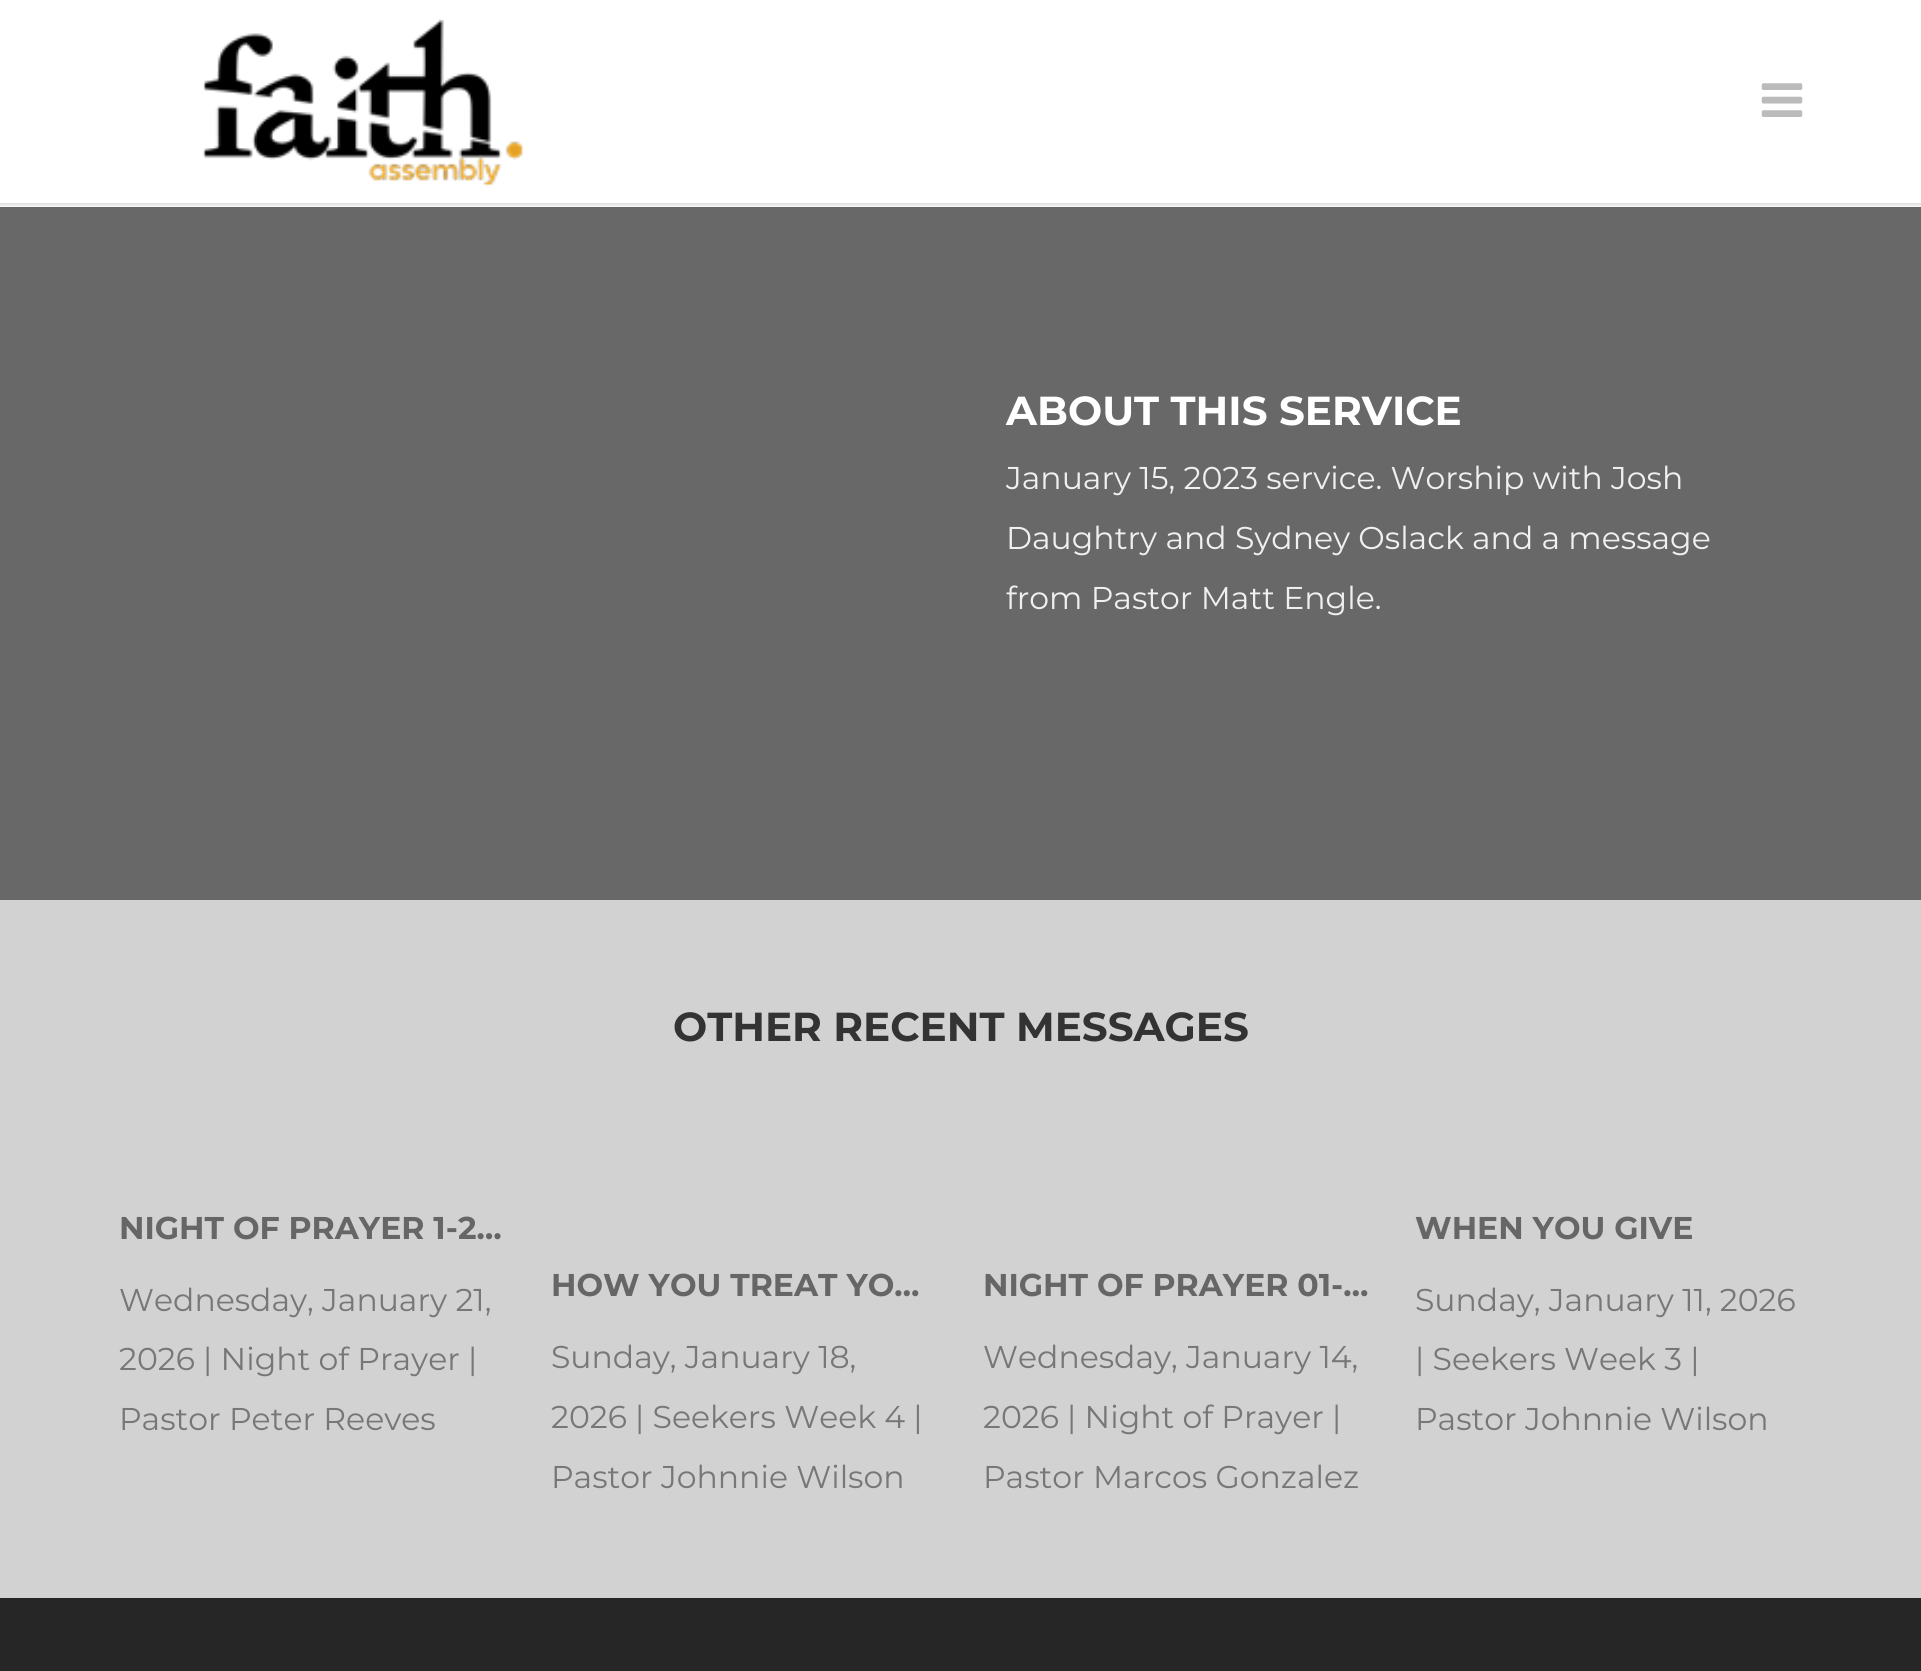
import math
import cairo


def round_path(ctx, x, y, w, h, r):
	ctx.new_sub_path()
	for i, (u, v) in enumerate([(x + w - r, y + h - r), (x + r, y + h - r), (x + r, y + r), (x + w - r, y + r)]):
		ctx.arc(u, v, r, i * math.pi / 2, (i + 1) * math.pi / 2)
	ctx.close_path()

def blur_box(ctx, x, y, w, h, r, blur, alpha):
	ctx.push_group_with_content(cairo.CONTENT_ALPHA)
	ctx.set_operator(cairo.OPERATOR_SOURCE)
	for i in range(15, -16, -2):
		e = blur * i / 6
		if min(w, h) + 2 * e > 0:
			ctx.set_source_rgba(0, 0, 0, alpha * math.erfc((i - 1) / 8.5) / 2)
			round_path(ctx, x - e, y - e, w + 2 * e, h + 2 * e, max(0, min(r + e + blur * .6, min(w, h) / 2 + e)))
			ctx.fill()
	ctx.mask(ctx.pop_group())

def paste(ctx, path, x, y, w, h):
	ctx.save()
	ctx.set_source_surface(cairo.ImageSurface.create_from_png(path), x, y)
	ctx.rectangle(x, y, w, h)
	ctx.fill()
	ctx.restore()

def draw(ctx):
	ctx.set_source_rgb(1, 1, 1)
	ctx.paint()
	ctx.set_source_rgb(0.408, 0.408, 0.408)
	ctx.rectangle(0, 207, 1921, 693)
	ctx.fill()
	ctx.set_source_rgb(0, 0, 0)
	blur_box(ctx, -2, -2, 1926, 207, 0, 2, 0.16)
	ctx.set_source_rgb(1, 1, 1)
	ctx.rectangle(0, 0, 1921, 203)
	ctx.fill()
	paste(ctx, 'media/1.png', 202, 19, 321, 168)
	paste(ctx, 'media/2.png', 1761, 83, 42, 34)
	ctx.select_font_face('Montserrat', cairo.FONT_SLANT_NORMAL, cairo.FONT_WEIGHT_BOLD)
	ctx.set_font_size(40.5)
	ctx.move_to(1006, 425)
	ctx.show_text('ABOUT THIS SERVICE')
	ctx.select_font_face('Montserrat')
	ctx.set_font_size(31.5)
	ctx.set_source_rgb(0.941, 0.941, 0.941)
	for x, y, s in [
		(1006, 489, 'January 15, 2023 service. Worship with Josh'),
		(1006, 549, 'Daughtry and Sydney Oslack and a message'),
		(1006, 609, 'from Pastor Matt Engle.'),
	]:
		ctx.move_to(x, y)
		ctx.show_text(s)
	ctx.set_source_rgb(0.824, 0.824, 0.824)
	ctx.rectangle(0, 900, 1921, 698)
	ctx.fill()
	ctx.select_font_face('Montserrat', cairo.FONT_SLANT_NORMAL, cairo.FONT_WEIGHT_BOLD)
	ctx.set_font_size(40.5)
	ctx.set_source_rgb(0.2, 0.2, 0.2)
	ctx.move_to(673, 1041)
	ctx.show_text('OTHER RECENT MESSAGES')
	ctx.set_font_size(31.5)
	ctx.set_source_rgb(0.4, 0.4, 0.4)
	ctx.move_to(119, 1239)
	ctx.show_text('NIGHT OF PRAYER 1-2…')
	ctx.select_font_face('Montserrat')
	ctx.set_source_rgb(0.467, 0.467, 0.467)
	for x, y, s in [
		(119, 1311, 'Wednesday, January 21,'),
		(119, 1370, '2026 | Night of Prayer |'),
		(119, 1430, 'Pastor Peter Reeves'),
	]:
		ctx.move_to(x, y)
		ctx.show_text(s)
	ctx.select_font_face('Montserrat', cairo.FONT_SLANT_NORMAL, cairo.FONT_WEIGHT_BOLD)
	ctx.set_source_rgb(0.4, 0.4, 0.4)
	ctx.move_to(551, 1296)
	ctx.show_text('HOW YOU TREAT YO…')
	ctx.select_font_face('Montserrat')
	ctx.set_source_rgb(0.467, 0.467, 0.467)
	for x, y, s in [
		(551, 1368, 'Sunday, January 18,'),
		(551, 1428, '2026 | Seekers Week 4 |'),
		(551, 1488, 'Pastor Johnnie Wilson'),
	]:
		ctx.move_to(x, y)
		ctx.show_text(s)
	ctx.select_font_face('Montserrat', cairo.FONT_SLANT_NORMAL, cairo.FONT_WEIGHT_BOLD)
	ctx.set_source_rgb(0.4, 0.4, 0.4)
	ctx.move_to(983, 1296)
	ctx.show_text('NIGHT OF PRAYER 01-…')
	ctx.select_font_face('Montserrat')
	ctx.set_source_rgb(0.467, 0.467, 0.467)
	for x, y, s in [
		(983, 1368, 'Wednesday, January 14,'),
		(983, 1428, '2026 | Night of Prayer |'),
		(983, 1488, 'Pastor Marcos Gonzalez'),
	]:
		ctx.move_to(x, y)
		ctx.show_text(s)
	ctx.select_font_face('Montserrat', cairo.FONT_SLANT_NORMAL, cairo.FONT_WEIGHT_BOLD)
	ctx.set_source_rgb(0.4, 0.4, 0.4)
	ctx.move_to(1415, 1239)
	ctx.show_text('WHEN YOU GIVE')
	ctx.select_font_face('Montserrat')
	ctx.set_source_rgb(0.467, 0.467, 0.467)
	for x, y, s in [
		(1415, 1311, 'Sunday, January 11, 2026'),
		(1415, 1370, '| Seekers Week 3 |'),
		(1415, 1430, 'Pastor Johnnie Wilson'),
	]:
		ctx.move_to(x, y)
		ctx.show_text(s)
	ctx.set_source_rgb(0.149, 0.149, 0.149)
	ctx.rectangle(0, 1598, 1921, 73)
	ctx.fill()


surface = cairo.ImageSurface(cairo.FORMAT_RGB24, 1921, 1671)
ctx = cairo.Context(surface)
options = cairo.FontOptions()
options.set_hint_metrics(cairo.HINT_METRICS_OFF)
options.set_hint_style(cairo.HINT_STYLE_NONE)
ctx.set_font_options(options)
ctx.set_miter_limit(4)
draw(ctx)
surface.write_to_png('image.png')
